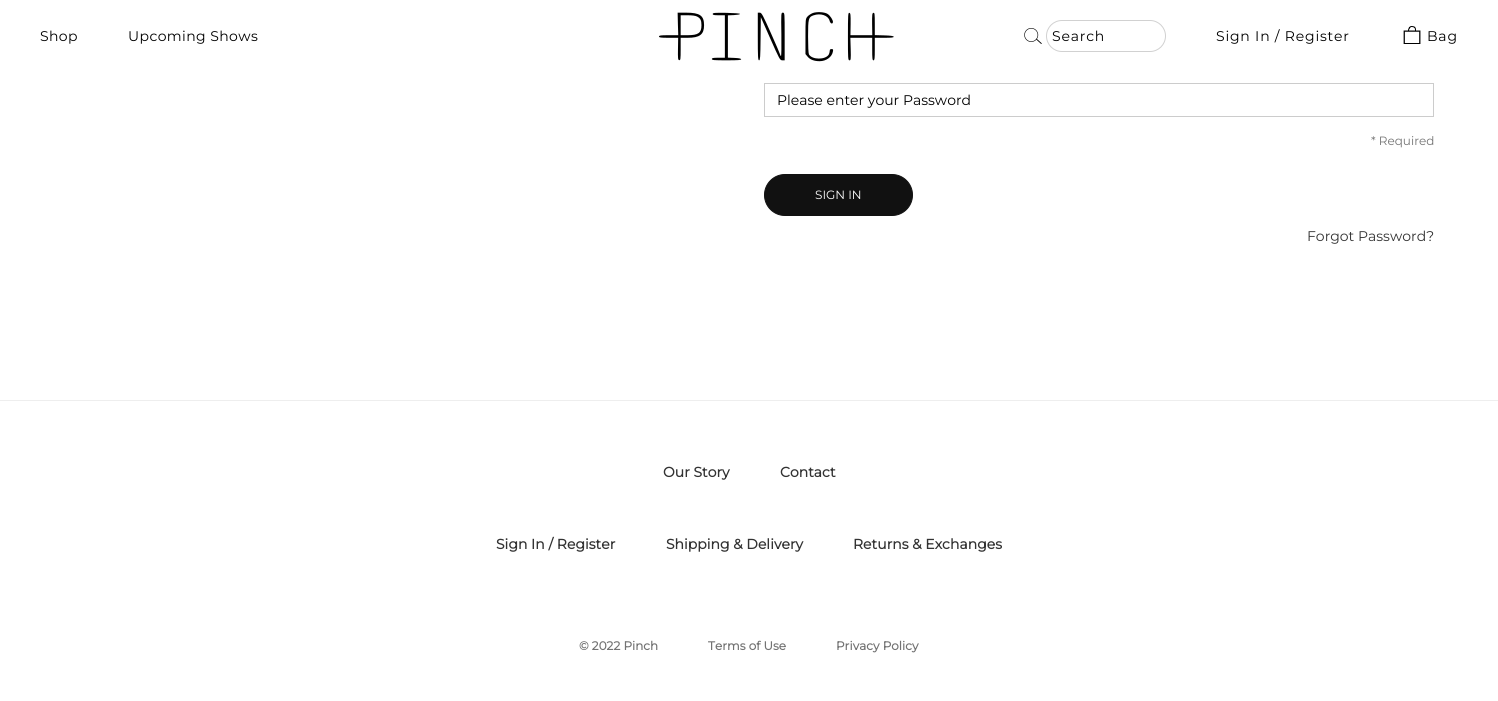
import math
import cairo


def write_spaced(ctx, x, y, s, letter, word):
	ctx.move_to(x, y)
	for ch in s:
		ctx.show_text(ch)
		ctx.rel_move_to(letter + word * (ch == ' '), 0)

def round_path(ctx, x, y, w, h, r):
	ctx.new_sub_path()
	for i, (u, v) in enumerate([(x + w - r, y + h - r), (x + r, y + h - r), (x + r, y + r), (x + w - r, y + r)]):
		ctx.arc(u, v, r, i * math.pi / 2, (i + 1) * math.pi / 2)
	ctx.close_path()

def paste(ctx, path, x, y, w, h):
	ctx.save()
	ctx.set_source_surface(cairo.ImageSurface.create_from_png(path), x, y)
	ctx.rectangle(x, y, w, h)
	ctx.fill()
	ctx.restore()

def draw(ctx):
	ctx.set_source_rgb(1, 1, 1)
	ctx.paint()
	ctx.select_font_face('Montserrat Thin')
	ctx.set_font_size(14)
	ctx.set_source_rgb(0, 0, 0)
	write_spaced(ctx, 40, 41, 'Shop', 0.4, 0)
	write_spaced(ctx, 128, 41, 'Upcoming Shows', 0.4, 0)
	paste(ctx, 'media/1.png', 659, 12, 235, 50)
	paste(ctx, 'media/2.png', 1024, 28, 18, 16)
	round_path(ctx, 1046.5, 20.5, 119, 31, 15.5)
	ctx.set_source_rgb(0.82, 0.82, 0.82)
	ctx.set_line_width(1)
	ctx.stroke()
	ctx.set_source_rgb(0, 0, 0)
	write_spaced(ctx, 1052, 41, 'Search', 0.8, 0)
	write_spaced(ctx, 1216, 41, 'Sign In / Register', 0.8, 0)
	paste(ctx, 'media/3.png', 1403, 26, 18, 18)
	write_spaced(ctx, 1427, 41, 'Bag', 0.8, 0)
	ctx.rectangle(764.5, 83.5, 669, 33)
	ctx.set_source_rgb(0.8, 0.8, 0.8)
	ctx.stroke()
	ctx.set_source_rgb(0, 0, 0)
	ctx.move_to(777, 105)
	ctx.show_text('Please enter your Password')
	ctx.set_font_size(12)
	ctx.set_source_rgb(0.451, 0.451, 0.451)
	ctx.move_to(1371, 145)
	ctx.show_text('* Required')
	ctx.set_source_rgb(0.067, 0.067, 0.067)
	round_path(ctx, 764.5, 174.5, 148, 41, 20.5)
	ctx.fill_preserve()
	ctx.stroke()
	ctx.set_source_rgb(1, 1, 1)
	ctx.move_to(815, 199)
	ctx.show_text('SIGN IN')
	ctx.set_font_size(14)
	ctx.set_source_rgb(0.2, 0.2, 0.2)
	ctx.move_to(1307, 241)
	ctx.show_text('Forgot Password?')
	ctx.set_source_rgb(0.933, 0.933, 0.933)
	ctx.rectangle(0, 400, 1498, 1)
	ctx.fill()
	ctx.select_font_face('Montserrat', cairo.FONT_SLANT_NORMAL, cairo.FONT_WEIGHT_BOLD)
	ctx.set_source_rgb(0.2, 0.2, 0.2)
	for x, y, s in [
		(663, 477, 'Our Story'),
		(780, 477, 'Contact'),
		(496, 549, 'Sign In / Register'),
		(666, 549, 'Shipping & Delivery'),
		(853, 549, 'Returns & Exchanges'),
	]:
		ctx.move_to(x, y)
		ctx.show_text(s)
	ctx.set_font_size(12)
	ctx.set_source_rgb(0.451, 0.451, 0.451)
	for x, y, s in [
		(579, 650, '© 2022 Pinch'),
		(708, 650, 'Terms of Use'),
		(836, 650, 'Privacy Policy'),
	]:
		ctx.move_to(x, y)
		ctx.show_text(s)


surface = cairo.ImageSurface(cairo.FORMAT_RGB24, 1498, 701)
ctx = cairo.Context(surface)
options = cairo.FontOptions()
options.set_hint_metrics(cairo.HINT_METRICS_OFF)
options.set_hint_style(cairo.HINT_STYLE_NONE)
ctx.set_font_options(options)
ctx.set_miter_limit(4)
draw(ctx)
surface.write_to_png('image.png')
